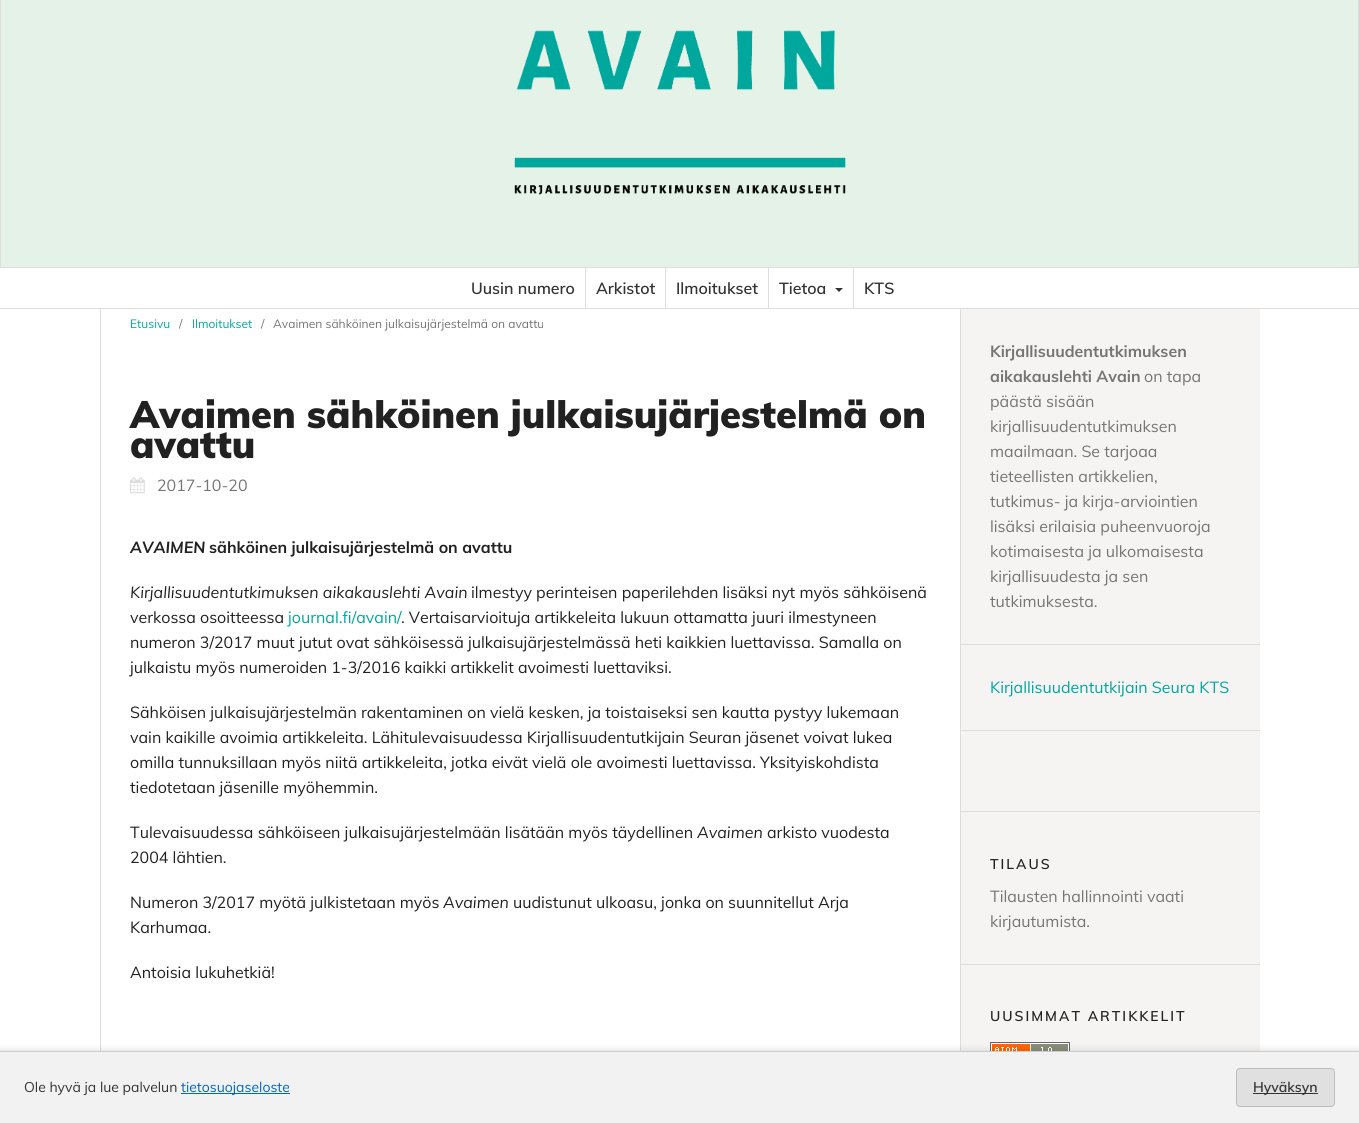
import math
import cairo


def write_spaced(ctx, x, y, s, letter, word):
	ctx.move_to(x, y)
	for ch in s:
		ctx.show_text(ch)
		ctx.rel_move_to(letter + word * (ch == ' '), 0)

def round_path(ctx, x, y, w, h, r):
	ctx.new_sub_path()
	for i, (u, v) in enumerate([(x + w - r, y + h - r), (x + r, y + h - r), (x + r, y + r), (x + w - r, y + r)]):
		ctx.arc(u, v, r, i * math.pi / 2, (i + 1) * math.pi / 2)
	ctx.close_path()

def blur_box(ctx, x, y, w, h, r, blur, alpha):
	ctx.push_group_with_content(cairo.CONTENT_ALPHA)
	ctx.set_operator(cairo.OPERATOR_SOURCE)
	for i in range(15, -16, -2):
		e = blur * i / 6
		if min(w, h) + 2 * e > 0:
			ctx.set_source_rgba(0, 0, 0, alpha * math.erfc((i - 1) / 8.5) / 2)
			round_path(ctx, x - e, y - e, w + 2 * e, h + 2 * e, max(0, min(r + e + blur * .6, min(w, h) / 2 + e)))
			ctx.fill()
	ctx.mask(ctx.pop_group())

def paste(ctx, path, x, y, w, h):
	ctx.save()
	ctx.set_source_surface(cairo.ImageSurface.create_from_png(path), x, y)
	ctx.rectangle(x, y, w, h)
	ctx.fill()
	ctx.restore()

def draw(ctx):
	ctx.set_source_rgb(1, 1, 1)
	ctx.paint()
	ctx.set_source_rgb(0.894, 0.949, 0.906)
	ctx.rectangle(0.5, -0.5, 1358, 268)
	ctx.fill_preserve()
	ctx.set_source_rgb(0.867, 0.867, 0.867)
	ctx.set_line_width(1)
	ctx.stroke()
	paste(ctx, 'media/1.png', 514, 30, 332, 165)
	ctx.rectangle(0, 308, 1359, 1)
	ctx.fill()
	ctx.rectangle(585, 268, 1, 40)
	ctx.fill()
	ctx.select_font_face('Muli SemiBold')
	ctx.set_font_size(16)
	ctx.set_source_rgb(0.2, 0.2, 0.2)
	ctx.move_to(471, 294)
	ctx.show_text('Uusin numero')
	ctx.set_source_rgb(0.867, 0.867, 0.867)
	ctx.rectangle(665, 268, 1, 40)
	ctx.fill()
	ctx.set_source_rgb(0.2, 0.2, 0.2)
	ctx.move_to(596, 294)
	ctx.show_text('Arkistot')
	ctx.set_source_rgb(0.867, 0.867, 0.867)
	ctx.rectangle(768, 268, 1, 40)
	ctx.fill()
	ctx.set_source_rgb(0.2, 0.2, 0.2)
	ctx.move_to(676, 294)
	ctx.show_text('Ilmoitukset')
	ctx.set_source_rgb(0.867, 0.867, 0.867)
	ctx.rectangle(853, 268, 1, 40)
	ctx.fill()
	ctx.set_source_rgb(0.2, 0.2, 0.2)
	ctx.move_to(779, 294)
	ctx.show_text('Tietoa')
	ctx.new_path()
	ctx.move_to(835, 288)
	ctx.line_to(843, 288)
	ctx.line_to(839, 292)
	ctx.close_path()
	ctx.fill()
	ctx.move_to(864, 294)
	ctx.show_text('KTS')
	ctx.set_source_rgb(0.867, 0.867, 0.867)
	ctx.rectangle(100, 309, 1, 742)
	ctx.fill()
	ctx.select_font_face('Muli')
	ctx.set_font_size(12)
	ctx.set_source_rgb(0, 0.655, 0.616)
	ctx.move_to(130, 328)
	ctx.show_text('Etusivu')
	ctx.set_source_rgb(0.459, 0.459, 0.459)
	ctx.move_to(179, 328)
	ctx.show_text('/')
	ctx.set_source_rgb(0, 0.655, 0.616)
	ctx.move_to(192, 328)
	ctx.show_text('Ilmoitukset')
	ctx.set_source_rgb(0.459, 0.459, 0.459)
	ctx.move_to(261, 328)
	ctx.show_text('/')
	ctx.move_to(273, 328)
	ctx.show_text('Avaimen sähköinen julkaisujärjestelmä on avattu')
	ctx.select_font_face('Muli Black')
	ctx.set_font_size(38)
	ctx.set_source_rgb(0.129, 0.129, 0.129)
	ctx.move_to(130, 428)
	ctx.show_text('Avaimen sähköinen julkaisujärjestelmä on')
	ctx.move_to(130, 458)
	ctx.show_text('avattu')
	paste(ctx, 'media/2.png', 130, 477, 15, 17)
	ctx.select_font_face('Muli')
	ctx.set_font_size(16)
	ctx.set_source_rgb(0.459, 0.459, 0.459)
	ctx.move_to(157, 491)
	ctx.show_text('2017-10-20')
	ctx.select_font_face('Muli', cairo.FONT_SLANT_ITALIC, cairo.FONT_WEIGHT_BOLD)
	ctx.set_source_rgb(0.129, 0.129, 0.129)
	ctx.move_to(130, 553)
	ctx.show_text('AVAIMEN')
	ctx.select_font_face('Muli', cairo.FONT_SLANT_NORMAL, cairo.FONT_WEIGHT_BOLD)
	ctx.move_to(209, 553)
	ctx.show_text('sähköinen julkaisujärjestelmä on avattu')
	ctx.select_font_face('Muli', cairo.FONT_SLANT_ITALIC)
	ctx.move_to(130, 598)
	ctx.show_text('Kirjallisuudentutkimuksen aikakauslehti Avain')
	ctx.select_font_face('Muli')
	ctx.move_to(471, 598)
	ctx.show_text('ilmestyy perinteisen paperilehden lisäksi nyt myös sähköisenä')
	ctx.move_to(130, 623)
	ctx.show_text('verkossa osoitteessa')
	ctx.set_source_rgb(0, 0.655, 0.616)
	ctx.move_to(288, 623)
	ctx.show_text('journal.fi/avain/')
	ctx.set_source_rgb(0.129, 0.129, 0.129)
	for x, y, s in [
		(401, 623, '. Vertaisarvioituja artikkeleita lukuun ottamatta juuri ilmestyneen'),
		(130, 648, 'numeron 3/2017 muut jutut ovat sähköisessä julkaisujärjestelmässä heti kaikkien luettavissa. Samalla on'),
		(130, 673, 'julkaistu myös numeroiden 1-3/2016 kaikki artikkelit avoimesti luettaviksi.'),
		(130, 718, 'Sähköisen julkaisujärjestelmän rakentaminen on vielä kesken, ja toistaiseksi sen kautta pystyy lukemaan'),
		(130, 743, 'vain kaikille avoimia artikkeleita. Lähitulevaisuudessa Kirjallisuudentutkijain Seuran jäsenet voivat lukea'),
		(130, 768, 'omilla tunnuksillaan myös niitä artikkeleita, jotka eivät vielä ole avoimesti luettavissa. Yksityiskohdista'),
		(130, 793, 'tiedotetaan jäsenille myöhemmin.'),
		(130, 838, 'Tulevaisuudessa sähköiseen julkaisujärjestelmään lisätään myös täydellinen'),
	]:
		ctx.move_to(x, y)
		ctx.show_text(s)
	ctx.select_font_face('Muli', cairo.FONT_SLANT_ITALIC)
	ctx.move_to(697, 838)
	ctx.show_text('Avaimen')
	ctx.select_font_face('Muli')
	for x, y, s in [
		(767, 838, 'arkisto vuodesta'),
		(130, 863, '2004 lähtien.'),
		(130, 908, 'Numeron 3/2017 myötä julkistetaan myös'),
	]:
		ctx.move_to(x, y)
		ctx.show_text(s)
	ctx.select_font_face('Muli', cairo.FONT_SLANT_ITALIC)
	ctx.move_to(443, 908)
	ctx.show_text('Avaimen')
	ctx.select_font_face('Muli')
	for x, y, s in [
		(513, 908, 'uudistunut ulkoasu, jonka on suunnitellut Arja'),
		(130, 933, 'Karhumaa.'),
		(130, 978, 'Antoisia lukuhetkiä!'),
	]:
		ctx.move_to(x, y)
		ctx.show_text(s)
	ctx.set_source_rgb(0.961, 0.957, 0.953)
	ctx.rectangle(961, 309, 299, 742)
	ctx.fill()
	ctx.set_source_rgb(0.867, 0.867, 0.867)
	ctx.rectangle(960, 644, 300, 1)
	ctx.rectangle(960, 730, 300, 1)
	ctx.rectangle(960, 811, 300, 1)
	ctx.rectangle(960, 964, 300, 1)
	ctx.rectangle(960, 309, 1, 742)
	ctx.fill()
	ctx.select_font_face('Muli', cairo.FONT_SLANT_NORMAL, cairo.FONT_WEIGHT_BOLD)
	ctx.set_source_rgb(0.459, 0.459, 0.459)
	ctx.move_to(990, 357)
	ctx.show_text('Kirjallisuudentutkimuksen')
	ctx.move_to(990, 382)
	ctx.show_text('aikakauslehti Avain')
	ctx.select_font_face('Muli')
	for x, y, s in [
		(1144, 382, 'on tapa'),
		(990, 407, 'päästä sisään'),
		(990, 432, 'kirjallisuudentutkimuksen'),
		(990, 457, 'maailmaan. Se tarjoaa'),
		(990, 482, 'tieteellisten artikkelien,'),
		(990, 507, 'tutkimus- ja kirja-arviointien'),
		(990, 532, 'lisäksi erilaisia puheenvuoroja'),
		(990, 557, 'kotimaisesta ja ulkomaisesta'),
		(990, 582, 'kirjallisuudesta ja sen'),
		(990, 607, 'tutkimuksesta.'),
	]:
		ctx.move_to(x, y)
		ctx.show_text(s)
	ctx.set_source_rgb(0, 0.655, 0.616)
	ctx.move_to(990, 693)
	ctx.show_text('Kirjallisuudentutkijain Seura KTS')
	ctx.select_font_face('Muli SemiBold')
	ctx.set_font_size(14)
	ctx.set_source_rgb(0.129, 0.129, 0.129)
	write_spaced(ctx, 990, 869, 'TILAUS', 2, 0)
	ctx.select_font_face('Muli')
	ctx.set_font_size(16)
	ctx.set_source_rgb(0.459, 0.459, 0.459)
	ctx.move_to(990, 902)
	ctx.show_text('Tilausten hallinnointi vaati')
	ctx.move_to(990, 927)
	ctx.show_text('kirjautumista.')
	ctx.select_font_face('Muli SemiBold')
	ctx.set_font_size(14)
	ctx.set_source_rgb(0.129, 0.129, 0.129)
	write_spaced(ctx, 990, 1021, 'UUSIMMAT ARTIKKELIT', 2, 0)
	paste(ctx, 'media/3.png', 990, 1042, 80, 9)
	ctx.set_source_rgb(0, 0, 0)
	blur_box(ctx, 0, 1049, 1359, 72, 0, 3, 0.1)
	ctx.set_source_rgb(0.949, 0.949, 0.949)
	ctx.rectangle(0, 1052, 1359, 71)
	ctx.fill()
	ctx.set_source_rgb(0.8, 0.8, 0.8)
	ctx.rectangle(0, 1051, 1359, 1)
	ctx.fill()
	ctx.select_font_face('Muli')
	ctx.set_source_rgb(0.2, 0.2, 0.2)
	ctx.move_to(24, 1092)
	ctx.show_text('Ole hyvä ja lue palvelun')
	ctx.set_source_rgb(0, 0.4, 0.8)
	ctx.rectangle(181, 1093, 109, 1)
	ctx.fill()
	ctx.move_to(181, 1092)
	ctx.show_text('tietosuojaseloste')
	ctx.set_source_rgb(0.878, 0.878, 0.878)
	round_path(ctx, 1236.5, 1068.5, 98, 38, 3.5)
	ctx.fill_preserve()
	ctx.set_source_rgb(0.733, 0.733, 0.733)
	ctx.stroke()
	ctx.set_source_rgb(0.2, 0.2, 0.2)
	ctx.rectangle(1253, 1093, 65, 1)
	ctx.fill()
	ctx.select_font_face('Muli SemiBold')
	ctx.move_to(1253, 1092)
	ctx.show_text('Hyväksyn')


surface = cairo.ImageSurface(cairo.FORMAT_RGB24, 1359, 1123)
ctx = cairo.Context(surface)
options = cairo.FontOptions()
options.set_hint_metrics(cairo.HINT_METRICS_OFF)
options.set_hint_style(cairo.HINT_STYLE_NONE)
ctx.set_font_options(options)
ctx.set_miter_limit(4)
draw(ctx)
surface.write_to_png('image.png')
